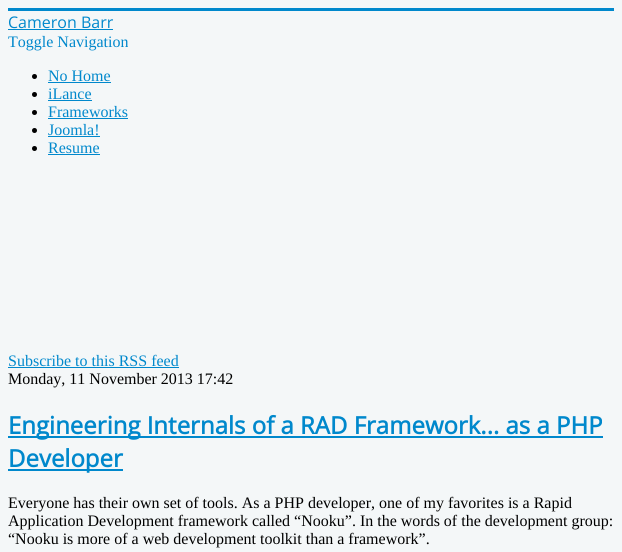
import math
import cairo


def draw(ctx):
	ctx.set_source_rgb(0.957, 0.965, 0.969)
	ctx.paint()
	ctx.set_source_rgb(0, 0.533, 0.8)
	ctx.rectangle(8, 8, 606, 3)
	ctx.fill()
	ctx.select_font_face('Open Sans')
	ctx.set_font_size(16)
	ctx.move_to(8, 28)
	ctx.show_text('Cameron Barr')
	ctx.rectangle(8, 29, 105, 1)
	ctx.fill()
	ctx.select_font_face('Liberation Serif')
	ctx.move_to(8, 47)
	ctx.show_text('Toggle Navigation')
	ctx.set_source_rgb(0, 0, 0)
	ctx.new_path()
	ctx.arc(34.5, 76.5, 2.5, 0, 2 * math.pi)
	ctx.fill()
	ctx.set_source_rgb(0, 0.533, 0.8)
	ctx.move_to(48, 81)
	ctx.show_text('No Home')
	ctx.rectangle(48, 82, 63, 1)
	ctx.fill()
	ctx.set_source_rgb(0, 0, 0)
	ctx.arc(34.5, 94.5, 2.5, 0, 2 * math.pi)
	ctx.fill()
	ctx.set_source_rgb(0, 0.533, 0.8)
	ctx.move_to(48, 99)
	ctx.show_text('iLance')
	ctx.rectangle(48, 100, 44, 1)
	ctx.fill()
	ctx.set_source_rgb(0, 0, 0)
	ctx.arc(34.5, 112.5, 2.5, 0, 2 * math.pi)
	ctx.fill()
	ctx.set_source_rgb(0, 0.533, 0.8)
	ctx.move_to(48, 117)
	ctx.show_text('Frameworks')
	ctx.rectangle(48, 118, 80, 1)
	ctx.fill()
	ctx.set_source_rgb(0, 0, 0)
	ctx.arc(34.5, 130.5, 2.5, 0, 2 * math.pi)
	ctx.fill()
	ctx.set_source_rgb(0, 0.533, 0.8)
	ctx.move_to(48, 135)
	ctx.show_text('Joomla!')
	ctx.rectangle(48, 136, 52, 1)
	ctx.fill()
	ctx.set_source_rgb(0, 0, 0)
	ctx.arc(34.5, 148.5, 2.5, 0, 2 * math.pi)
	ctx.fill()
	ctx.set_source_rgb(0, 0.533, 0.8)
	ctx.move_to(48, 153)
	ctx.show_text('Resume')
	ctx.rectangle(48, 154, 52, 1)
	ctx.fill()
	ctx.move_to(8, 366)
	ctx.show_text('Subscribe to this RSS feed')
	ctx.rectangle(8, 367, 171, 1)
	ctx.fill()
	ctx.set_source_rgb(0, 0, 0)
	ctx.move_to(8, 384)
	ctx.show_text('Monday, 11 November 2013 17:42')
	ctx.set_source_rgb(0, 0.533, 0.8)
	ctx.rectangle(8, 436, 595, 2)
	ctx.fill()
	ctx.select_font_face('Open Sans', cairo.FONT_SLANT_NORMAL, cairo.FONT_WEIGHT_BOLD)
	ctx.set_font_size(24)
	ctx.move_to(8, 434)
	ctx.show_text('Engineering Internals of a RAD Framework... as a PHP')
	ctx.rectangle(8, 469, 115, 2)
	ctx.fill()
	ctx.move_to(8, 467)
	ctx.show_text('Developer')
	ctx.select_font_face('Liberation Serif')
	ctx.set_font_size(16)
	ctx.set_source_rgb(0, 0, 0)
	for x, y, s in [
		(8, 508, 'Everyone has their own set of tools. As a PHP developer, one of my favorites is a Rapid'),
		(8, 526, 'Application Development framework called “Nooku”. In the words of the development group:'),
		(8, 544, '“Nooku is more of a web development toolkit than a framework”.'),
	]:
		ctx.move_to(x, y)
		ctx.show_text(s)


surface = cairo.ImageSurface(cairo.FORMAT_RGB24, 622, 552)
ctx = cairo.Context(surface)
options = cairo.FontOptions()
options.set_hint_metrics(cairo.HINT_METRICS_OFF)
options.set_hint_style(cairo.HINT_STYLE_NONE)
ctx.set_font_options(options)
ctx.set_miter_limit(4)
draw(ctx)
surface.write_to_png('image.png')
